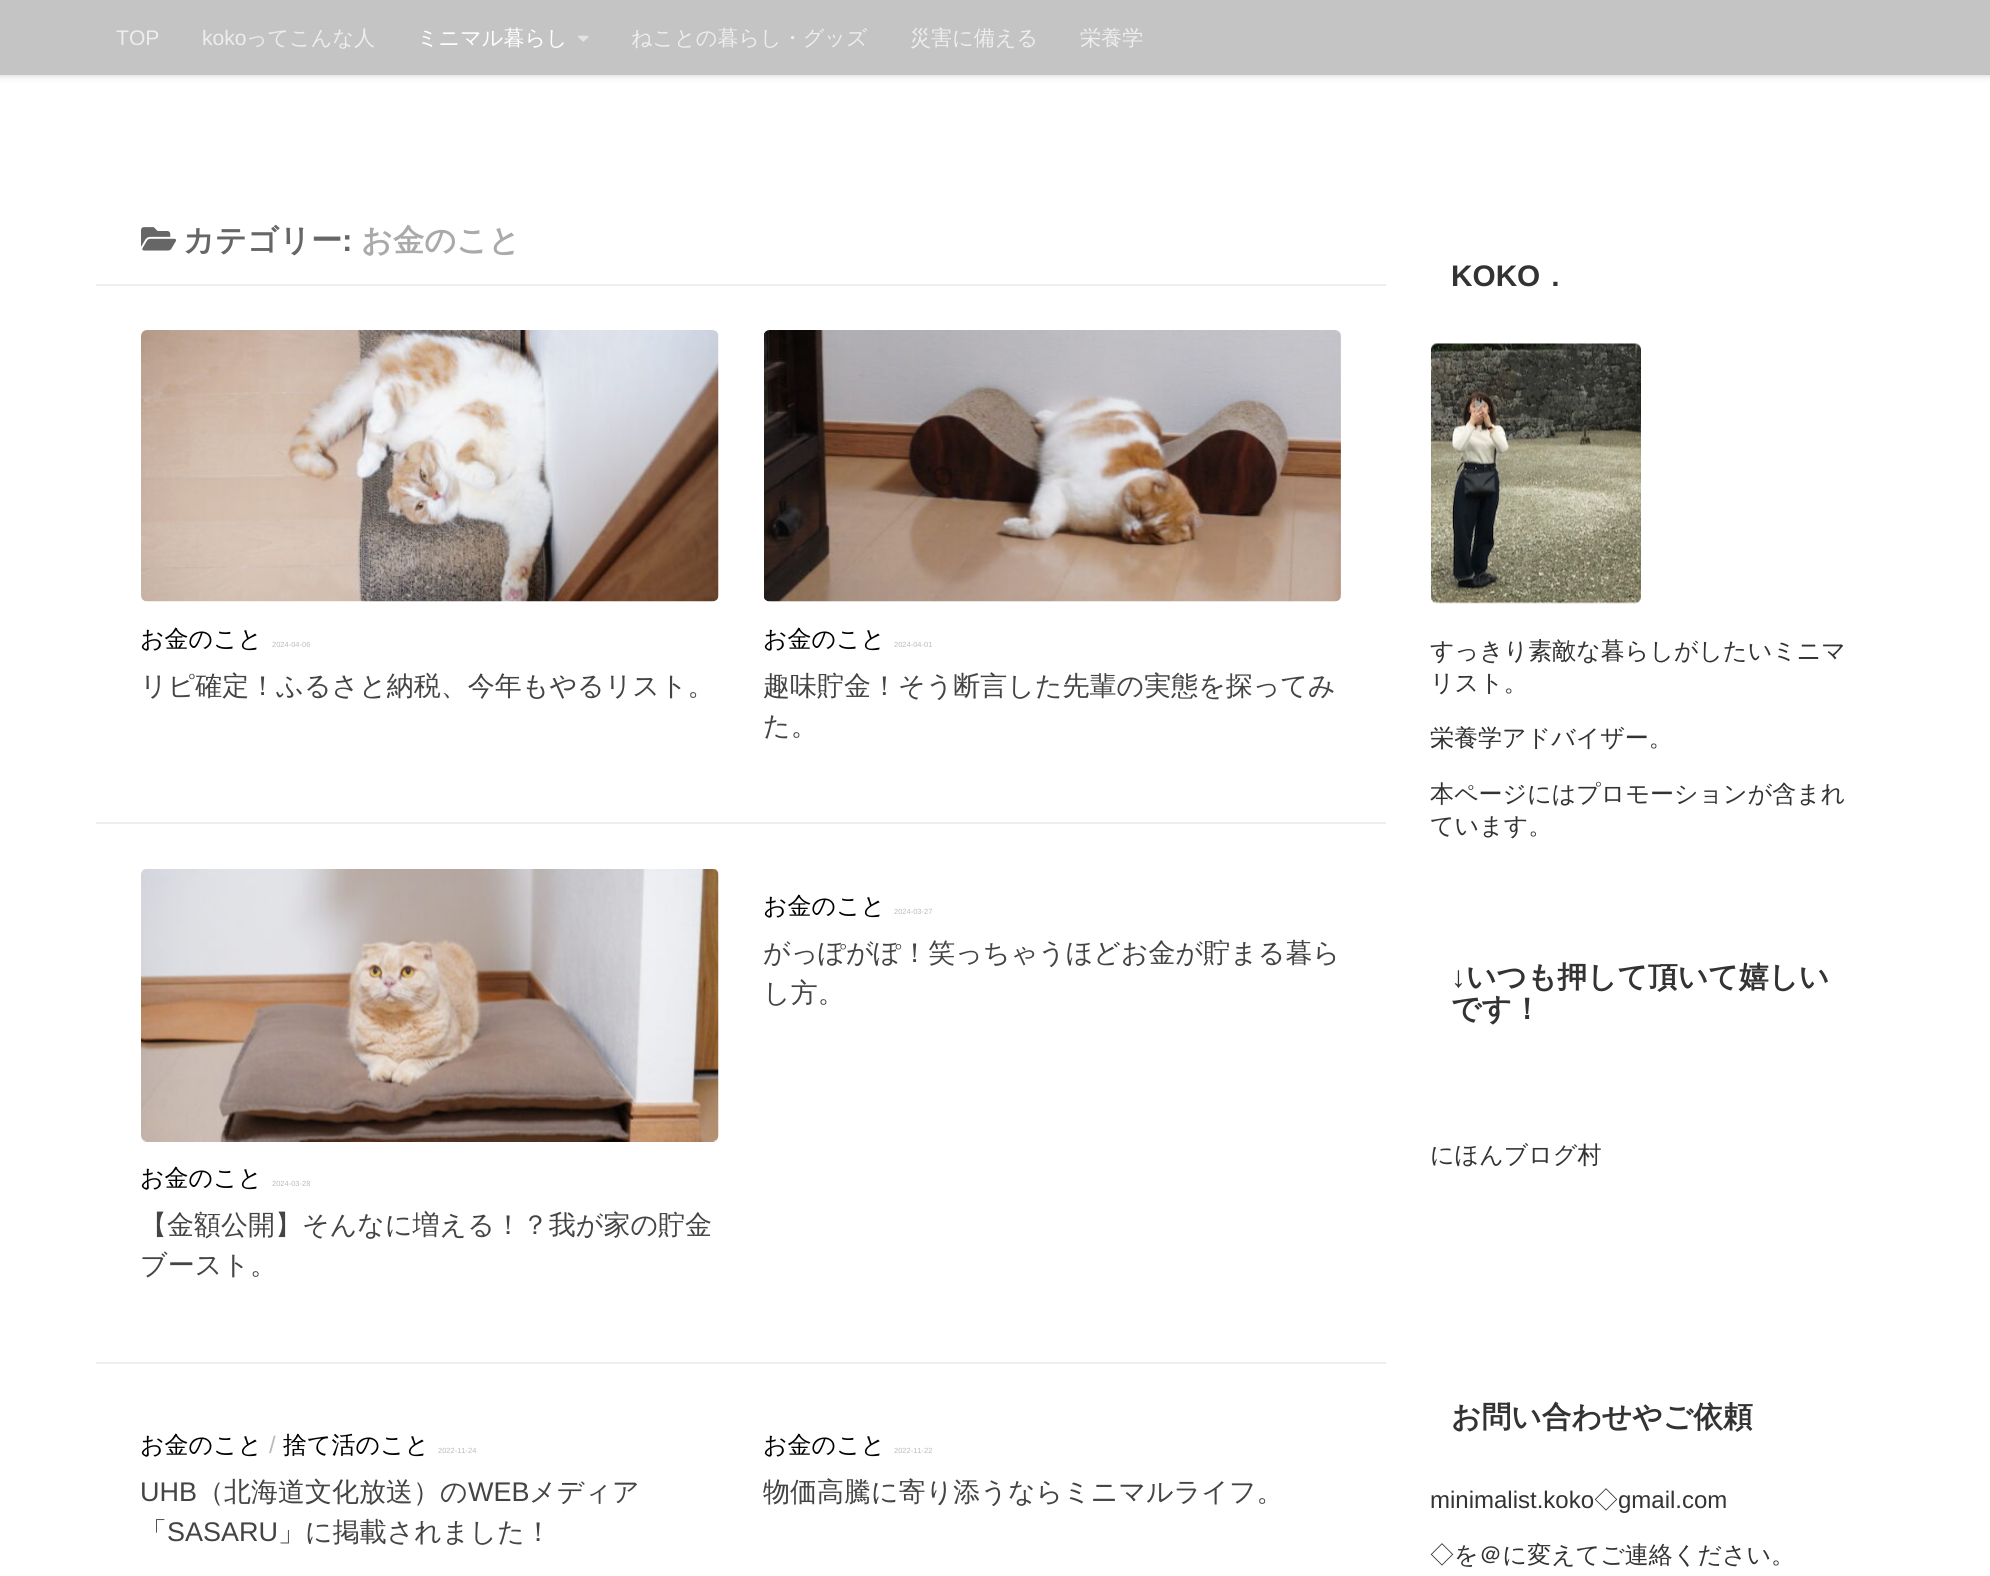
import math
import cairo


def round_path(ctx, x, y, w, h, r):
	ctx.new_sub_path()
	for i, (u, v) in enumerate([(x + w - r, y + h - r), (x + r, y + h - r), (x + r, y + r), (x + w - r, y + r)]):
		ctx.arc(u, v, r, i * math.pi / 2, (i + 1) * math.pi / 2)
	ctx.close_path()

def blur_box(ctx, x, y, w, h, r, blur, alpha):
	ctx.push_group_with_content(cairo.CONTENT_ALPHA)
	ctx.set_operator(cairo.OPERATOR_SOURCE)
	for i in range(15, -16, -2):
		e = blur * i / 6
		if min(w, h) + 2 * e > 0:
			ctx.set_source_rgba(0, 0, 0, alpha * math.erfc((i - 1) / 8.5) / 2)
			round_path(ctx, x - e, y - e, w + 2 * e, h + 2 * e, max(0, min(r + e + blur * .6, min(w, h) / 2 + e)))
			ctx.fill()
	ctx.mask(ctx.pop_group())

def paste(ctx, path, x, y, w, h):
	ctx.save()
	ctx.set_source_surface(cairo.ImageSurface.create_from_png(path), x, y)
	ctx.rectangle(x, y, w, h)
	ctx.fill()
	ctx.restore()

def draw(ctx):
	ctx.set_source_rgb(1, 1, 1)
	ctx.paint()
	ctx.set_source_rgb(0, 0, 0)
	blur_box(ctx, 0, 0, 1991, 75, 0, 4, 0.2)
	ctx.set_source_rgb(0.769, 0.769, 0.769)
	ctx.rectangle(0, 0, 1990, 75)
	ctx.fill()
	ctx.select_font_face('Liberation Sans')
	ctx.set_font_size(21.1)
	ctx.set_source_rgb(0.929, 0.929, 0.929)
	ctx.move_to(116, 45)
	ctx.show_text('TOP')
	ctx.move_to(202, 45)
	ctx.show_text('koko')
	ctx.select_font_face('WenQuanYi Zen Hei Medium')
	ctx.move_to(246, 45)
	ctx.show_text('ってこんな人')
	ctx.set_source_rgb(1, 1, 1)
	ctx.move_to(417, 45)
	ctx.show_text('ミニマル暮らし')
	paste(ctx, 'media/1.png', 578, 35, 11, 7)
	ctx.set_source_rgb(0.929, 0.929, 0.929)
	for x, y, s in [
		(631, 45, 'ねことの暮らし・グッズ'),
		(910, 45, '災害に備える'),
		(1080, 45, '栄養学'),
	]:
		ctx.move_to(x, y)
		ctx.show_text(s)
	ctx.set_source_rgb(0.933, 0.933, 0.933)
	ctx.rectangle(96, 284, 1290, 2)
	ctx.fill()
	paste(ctx, 'media/2.png', 141, 227, 36, 24)
	ctx.select_font_face('WenQuanYi Zen Hei', cairo.FONT_SLANT_NORMAL, cairo.FONT_WEIGHT_BOLD)
	ctx.set_font_size(31.25)
	ctx.set_source_rgb(0.4, 0.4, 0.4)
	ctx.move_to(183, 251)
	ctx.show_text('カテゴリー')
	ctx.select_font_face('Liberation Sans', cairo.FONT_SLANT_NORMAL, cairo.FONT_WEIGHT_BOLD)
	ctx.move_to(342, 251)
	ctx.show_text(':')
	ctx.select_font_face('WenQuanYi Zen Hei', cairo.FONT_SLANT_NORMAL, cairo.FONT_WEIGHT_BOLD)
	ctx.set_source_rgb(0.667, 0.667, 0.667)
	ctx.move_to(361, 251)
	ctx.show_text('お金のこと')
	ctx.set_source_rgb(0.933, 0.933, 0.933)
	ctx.rectangle(96, 822, 1290, 2)
	ctx.fill()
	paste(ctx, 'media/3.png', 141, 330, 578, 272)
	ctx.select_font_face('WenQuanYi Zen Hei Medium')
	ctx.set_font_size(24)
	ctx.set_source_rgb(0, 0, 0)
	ctx.move_to(140, 647)
	ctx.show_text('お金のこと')
	ctx.select_font_face('Liberation Sans')
	ctx.set_font_size(7.5)
	ctx.set_source_rgb(0.733, 0.733, 0.733)
	ctx.move_to(272, 647)
	ctx.show_text('2024-04-06')
	ctx.select_font_face('WenQuanYi Zen Hei Medium')
	ctx.set_font_size(27)
	ctx.set_source_rgb(0.267, 0.267, 0.267)
	ctx.move_to(140, 695)
	ctx.show_text('リピ確定！ふるさと納税、今年もやるリスト。')
	paste(ctx, 'media/4.png', 764, 330, 577, 272)
	ctx.set_font_size(24)
	ctx.set_source_rgb(0, 0, 0)
	ctx.move_to(763, 647)
	ctx.show_text('お金のこと')
	ctx.select_font_face('Liberation Sans')
	ctx.set_font_size(7.5)
	ctx.set_source_rgb(0.733, 0.733, 0.733)
	ctx.move_to(894, 647)
	ctx.show_text('2024-04-01')
	ctx.select_font_face('WenQuanYi Zen Hei Medium')
	ctx.set_font_size(27)
	ctx.set_source_rgb(0.267, 0.267, 0.267)
	ctx.move_to(763, 695)
	ctx.show_text('趣味貯金！そう断言した先輩の実態を探ってみ')
	ctx.move_to(763, 735)
	ctx.show_text('た。')
	ctx.set_source_rgb(0.933, 0.933, 0.933)
	ctx.rectangle(96, 1362, 1290, 2)
	ctx.fill()
	ctx.set_font_size(24)
	ctx.set_source_rgb(0, 0, 0)
	ctx.move_to(763, 914)
	ctx.show_text('お金のこと')
	ctx.select_font_face('Liberation Sans')
	ctx.set_font_size(7.5)
	ctx.set_source_rgb(0.733, 0.733, 0.733)
	ctx.move_to(894, 914)
	ctx.show_text('2024-03-27')
	ctx.select_font_face('WenQuanYi Zen Hei Medium')
	ctx.set_font_size(27)
	ctx.set_source_rgb(0.267, 0.267, 0.267)
	ctx.move_to(763, 962)
	ctx.show_text('がっぽがぽ！笑っちゃうほどお金が貯まる暮ら')
	ctx.move_to(763, 1002)
	ctx.show_text('し方。')
	paste(ctx, 'media/5.png', 141, 869, 578, 273)
	ctx.set_font_size(24)
	ctx.set_source_rgb(0, 0, 0)
	ctx.move_to(140, 1186)
	ctx.show_text('お金のこと')
	ctx.select_font_face('Liberation Sans')
	ctx.set_font_size(7.5)
	ctx.set_source_rgb(0.733, 0.733, 0.733)
	ctx.move_to(272, 1186)
	ctx.show_text('2024-03-28')
	ctx.select_font_face('WenQuanYi Zen Hei Medium')
	ctx.set_font_size(27)
	ctx.set_source_rgb(0.267, 0.267, 0.267)
	ctx.move_to(140, 1234)
	ctx.show_text('【金額公開】そんなに増える！？我が家の貯金')
	ctx.move_to(140, 1274)
	ctx.show_text('ブースト。')
	ctx.set_font_size(24)
	ctx.set_source_rgb(0, 0, 0)
	ctx.move_to(140, 1453)
	ctx.show_text('お金のこと')
	ctx.select_font_face('Liberation Sans')
	ctx.set_source_rgb(0.733, 0.733, 0.733)
	ctx.move_to(269, 1453)
	ctx.show_text('/')
	ctx.select_font_face('WenQuanYi Zen Hei Medium')
	ctx.set_source_rgb(0, 0, 0)
	ctx.move_to(283, 1453)
	ctx.show_text('捨て活のこと')
	ctx.select_font_face('Liberation Sans')
	ctx.set_font_size(7.5)
	ctx.set_source_rgb(0.733, 0.733, 0.733)
	ctx.move_to(438, 1453)
	ctx.show_text('2022-11-24')
	ctx.set_font_size(27)
	ctx.set_source_rgb(0.267, 0.267, 0.267)
	ctx.move_to(140, 1501)
	ctx.show_text('UHB')
	ctx.select_font_face('WenQuanYi Zen Hei Medium')
	ctx.move_to(197, 1501)
	ctx.show_text('（北海道文化放送）の')
	ctx.select_font_face('Liberation Sans')
	ctx.move_to(468, 1501)
	ctx.show_text('WEB')
	ctx.select_font_face('WenQuanYi Zen Hei Medium')
	ctx.move_to(529, 1501)
	ctx.show_text('メディア')
	ctx.move_to(140, 1541)
	ctx.show_text('「')
	ctx.select_font_face('Liberation Sans')
	ctx.move_to(167, 1541)
	ctx.show_text('SASARU')
	ctx.select_font_face('WenQuanYi Zen Hei Medium')
	ctx.move_to(278, 1541)
	ctx.show_text('」に掲載されました！')
	ctx.set_font_size(24)
	ctx.set_source_rgb(0, 0, 0)
	ctx.move_to(763, 1453)
	ctx.show_text('お金のこと')
	ctx.select_font_face('Liberation Sans')
	ctx.set_font_size(7.5)
	ctx.set_source_rgb(0.733, 0.733, 0.733)
	ctx.move_to(894, 1453)
	ctx.show_text('2022-11-22')
	ctx.select_font_face('WenQuanYi Zen Hei Medium')
	ctx.set_font_size(27)
	ctx.set_source_rgb(0.267, 0.267, 0.267)
	ctx.move_to(763, 1501)
	ctx.show_text('物価高騰に寄り添うならミニマルライフ。')
	ctx.select_font_face('Liberation Sans', cairo.FONT_SLANT_NORMAL, cairo.FONT_WEIGHT_BOLD)
	ctx.set_font_size(29.75)
	ctx.set_source_rgb(0.2, 0.2, 0.2)
	ctx.move_to(1451, 286)
	ctx.show_text('KOKO')
	ctx.select_font_face('WenQuanYi Zen Hei', cairo.FONT_SLANT_NORMAL, cairo.FONT_WEIGHT_BOLD)
	ctx.move_to(1540, 286)
	ctx.show_text('．')
	paste(ctx, 'media/6.png', 1431, 343, 210, 261)
	ctx.select_font_face('WenQuanYi Zen Hei Medium')
	ctx.set_font_size(24)
	for x, y, s in [
		(1430, 659, 'すっきり素敵な暮らしがしたいミニマ'),
		(1430, 691, 'リスト。'),
		(1430, 746, '栄養学アドバイザー。'),
		(1430, 802, '本ページにはプロモーションが含まれ'),
		(1430, 834, 'ています。'),
	]:
		ctx.move_to(x, y)
		ctx.show_text(s)
	ctx.select_font_face('Liberation Sans', cairo.FONT_SLANT_NORMAL, cairo.FONT_WEIGHT_BOLD)
	ctx.set_font_size(29.75)
	ctx.move_to(1451, 987)
	ctx.show_text('↓')
	ctx.select_font_face('WenQuanYi Zen Hei', cairo.FONT_SLANT_NORMAL, cairo.FONT_WEIGHT_BOLD)
	ctx.move_to(1466, 987)
	ctx.show_text('いつも押して頂いて嬉しい')
	ctx.move_to(1451, 1019)
	ctx.show_text('です！')
	ctx.select_font_face('WenQuanYi Zen Hei Medium')
	ctx.set_font_size(24)
	ctx.move_to(1430, 1163)
	ctx.show_text('にほんブログ村')
	ctx.select_font_face('WenQuanYi Zen Hei', cairo.FONT_SLANT_NORMAL, cairo.FONT_WEIGHT_BOLD)
	ctx.set_font_size(29.75)
	ctx.move_to(1451, 1427)
	ctx.show_text('お問い合わせやご依頼')
	ctx.select_font_face('Liberation Sans')
	ctx.set_font_size(24)
	ctx.move_to(1430, 1508)
	ctx.show_text('minimalist.koko')
	ctx.select_font_face('WenQuanYi Zen Hei Medium')
	ctx.move_to(1594, 1508)
	ctx.show_text('◇')
	ctx.select_font_face('Liberation Sans')
	ctx.move_to(1618, 1508)
	ctx.show_text('gmail.com')
	ctx.select_font_face('WenQuanYi Zen Hei Medium')
	ctx.move_to(1430, 1563)
	ctx.show_text('◇を＠に変えてご連絡ください。')


surface = cairo.ImageSurface(cairo.FORMAT_RGB24, 1990, 1576)
ctx = cairo.Context(surface)
options = cairo.FontOptions()
options.set_hint_metrics(cairo.HINT_METRICS_OFF)
options.set_hint_style(cairo.HINT_STYLE_NONE)
ctx.set_font_options(options)
ctx.set_miter_limit(4)
draw(ctx)
surface.write_to_png('image.png')
